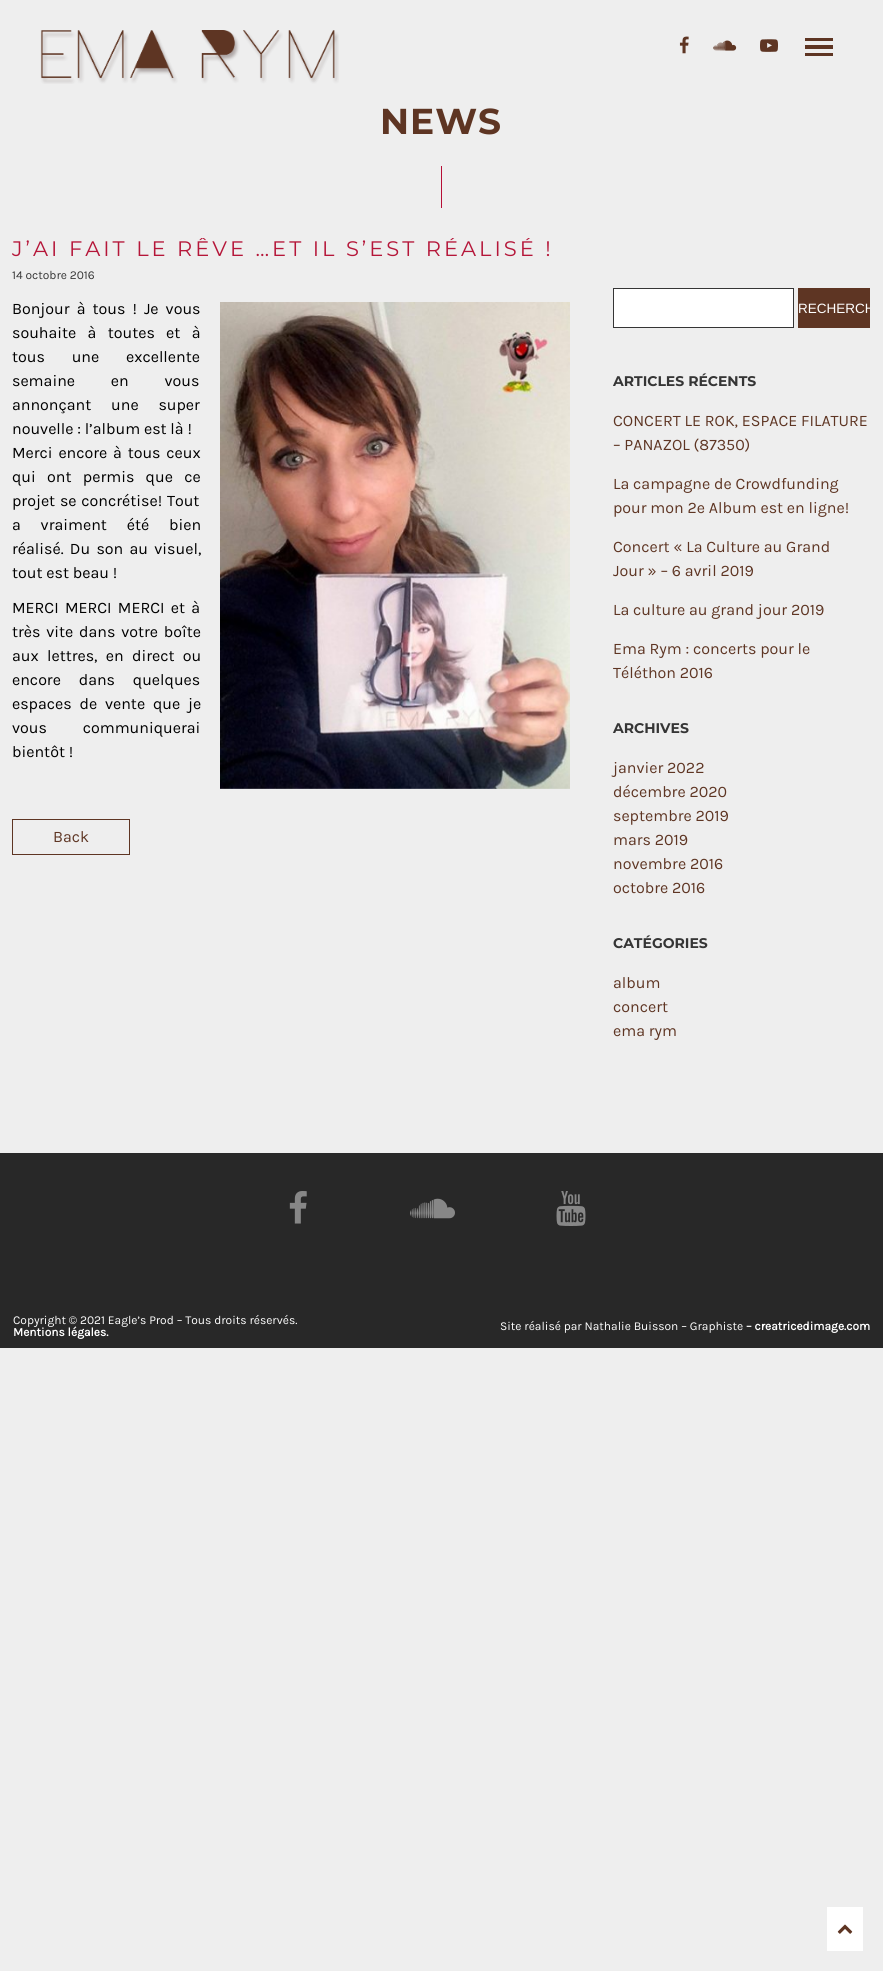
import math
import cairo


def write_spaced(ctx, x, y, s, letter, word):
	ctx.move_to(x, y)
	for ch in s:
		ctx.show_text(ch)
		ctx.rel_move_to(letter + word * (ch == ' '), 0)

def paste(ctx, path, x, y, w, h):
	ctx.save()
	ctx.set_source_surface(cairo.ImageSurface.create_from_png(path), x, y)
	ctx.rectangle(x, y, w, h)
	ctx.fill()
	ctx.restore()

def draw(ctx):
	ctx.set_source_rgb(0.933, 0.933, 0.933)
	ctx.paint()
	paste(ctx, 'media/1.png', 40, 30, 299, 54)
	paste(ctx, 'media/2.png', 679, 36, 10, 18)
	paste(ctx, 'media/3.png', 713, 40, 24, 11)
	paste(ctx, 'media/4.png', 760, 39, 18, 13)
	ctx.set_source_rgb(0.369, 0.208, 0.137)
	ctx.rectangle(805, 38, 28, 3)
	ctx.rectangle(805, 45, 28, 4)
	ctx.rectangle(805, 53, 28, 3)
	ctx.fill()
	ctx.select_font_face('Montserrat', cairo.FONT_SLANT_NORMAL, cairo.FONT_WEIGHT_BOLD)
	ctx.set_font_size(36)
	write_spaced(ctx, 380, 134, 'NEWS', 1, 0)
	ctx.set_source_rgb(0.714, 0.055, 0.212)
	ctx.rectangle(441, 166, 1, 42)
	ctx.fill()
	ctx.save()
	ctx.rectangle(12, 238, 558, 556)
	ctx.clip()
	ctx.select_font_face('Montserrat Thin')
	ctx.set_font_size(21)
	ctx.set_source_rgb(0.71, 0.086, 0.224)
	write_spaced(ctx, 12, 256, 'J’AI FAIT LE RÊVE …ET IL S’EST RÉALISÉ !', 3, 0)
	ctx.restore()
	ctx.select_font_face('Karla')
	ctx.set_font_size(12)
	ctx.set_source_rgb(0.208, 0.208, 0.208)
	ctx.move_to(12, 279)
	ctx.show_text('14 octobre 2016')
	ctx.set_font_size(16)
	ctx.set_source_rgb(0, 0, 0)
	write_spaced(ctx, 12, 314, 'Bonjour à tous ! Je vous', 0, 3.25)
	paste(ctx, 'media/5.png', 220, 302, 350, 487)
	write_spaced(ctx, 12, 338, 'souhaite à toutes et à', 0, 7.5)
	write_spaced(ctx, 12, 362, 'tous une excellente', 0, 23)
	write_spaced(ctx, 12, 386, 'semaine en vous', 0, 32)
	write_spaced(ctx, 12, 410, 'annonçant une super', 0, 16)
	ctx.move_to(12, 434)
	ctx.show_text('nouvelle : l’album est là !')
	write_spaced(ctx, 12, 458, 'Merci encore à tous ceux', 0, 2)
	write_spaced(ctx, 12, 482, 'qui ont permis que ce', 0, 7.5)
	write_spaced(ctx, 12, 506, 'projet se concrétise! Tout', 0, 1)
	write_spaced(ctx, 12, 530, 'a vraiment été bien', 0, 16)
	write_spaced(ctx, 12, 554, 'réalisé. Du son au visuel,', 0, 2.5)
	ctx.move_to(12, 578)
	ctx.show_text('tout est beau !')
	write_spaced(ctx, 12, 613, 'MERCI MERCI MERCI et à', 0, 2.5)
	write_spaced(ctx, 12, 637, 'très vite dans votre boîte', 0, 2)
	write_spaced(ctx, 12, 661, 'aux lettres, en direct ou', 0, 4.5)
	write_spaced(ctx, 12, 685, 'encore dans quelques', 0, 14)
	write_spaced(ctx, 12, 709, 'espaces de vente que je', 0, 4)
	write_spaced(ctx, 12, 733, 'vous communiquerai', 0, 32)
	ctx.move_to(12, 757)
	ctx.show_text('bientôt !')
	ctx.rectangle(12.5, 819.5, 117, 35)
	ctx.set_source_rgb(0.369, 0.208, 0.137)
	ctx.set_line_width(1)
	ctx.stroke()
	ctx.move_to(53, 842)
	ctx.show_text('Back')
	ctx.set_source_rgb(1, 1, 1)
	ctx.rectangle(613.5, 288.5, 180, 39)
	ctx.fill_preserve()
	ctx.set_source_rgb(0.208, 0.208, 0.208)
	ctx.stroke()
	ctx.set_source_rgb(0.369, 0.208, 0.137)
	ctx.rectangle(798, 288, 72, 40)
	ctx.fill()
	ctx.save()
	ctx.rectangle(798, 288, 72, 40)
	ctx.clip()
	ctx.select_font_face('Liberation Sans')
	ctx.set_font_size(13.5)
	ctx.set_source_rgb(1, 1, 1)
	ctx.move_to(798, 313)
	ctx.show_text('RECHERCH')
	ctx.restore()
	ctx.select_font_face('Montserrat', cairo.FONT_SLANT_NORMAL, cairo.FONT_WEIGHT_BOLD)
	ctx.set_font_size(14)
	ctx.set_source_rgb(0.208, 0.208, 0.208)
	ctx.move_to(613, 386)
	ctx.show_text('ARTICLES RÉCENTS')
	ctx.select_font_face('Karla')
	ctx.set_font_size(16)
	ctx.set_source_rgb(0.369, 0.208, 0.137)
	for x, y, s in [
		(613, 426, 'CONCERT LE ROK, ESPACE FILATURE'),
		(613, 450, '– PANAZOL (87350)'),
		(613, 489, 'La campagne de Crowdfunding'),
		(613, 513, 'pour mon 2e Album est en ligne!'),
		(613, 552, 'Concert « La Culture au Grand'),
		(613, 576, 'Jour » – 6 avril 2019'),
		(613, 615, 'La culture au grand jour 2019'),
		(613, 654, 'Ema Rym : concerts pour le'),
		(613, 678, 'Téléthon 2016'),
	]:
		ctx.move_to(x, y)
		ctx.show_text(s)
	ctx.select_font_face('Montserrat', cairo.FONT_SLANT_NORMAL, cairo.FONT_WEIGHT_BOLD)
	ctx.set_font_size(14)
	ctx.set_source_rgb(0.208, 0.208, 0.208)
	ctx.move_to(613, 733)
	ctx.show_text('ARCHIVES')
	ctx.select_font_face('Karla')
	ctx.set_font_size(16)
	ctx.set_source_rgb(0.369, 0.208, 0.137)
	for x, y, s in [
		(613, 773, 'janvier 2022'),
		(613, 797, 'décembre 2020'),
		(613, 821, 'septembre 2019'),
		(613, 845, 'mars 2019'),
		(613, 869, 'novembre 2016'),
		(613, 893, 'octobre 2016'),
	]:
		ctx.move_to(x, y)
		ctx.show_text(s)
	ctx.select_font_face('Montserrat', cairo.FONT_SLANT_NORMAL, cairo.FONT_WEIGHT_BOLD)
	ctx.set_font_size(14)
	ctx.set_source_rgb(0.208, 0.208, 0.208)
	ctx.move_to(613, 948)
	ctx.show_text('CATÉGORIES')
	ctx.select_font_face('Karla')
	ctx.set_font_size(16)
	ctx.set_source_rgb(0.369, 0.208, 0.137)
	for x, y, s in [
		(613, 988, 'album'),
		(613, 1012, 'concert'),
		(613, 1036, 'ema rym'),
	]:
		ctx.move_to(x, y)
		ctx.show_text(s)
	ctx.set_source_rgb(0.157, 0.157, 0.157)
	ctx.rectangle(0, 1153, 883, 195)
	ctx.fill()
	paste(ctx, 'media/6.png', 289, 1191, 18, 33)
	paste(ctx, 'media/7.png', 410, 1198, 45, 21)
	paste(ctx, 'media/8.png', 556, 1191, 30, 35)
	ctx.set_font_size(12)
	ctx.set_source_rgb(1, 1, 1)
	ctx.move_to(13, 1324)
	ctx.show_text('Copyright © 2021 Eagle’s Prod – Tous droits réservés.')
	ctx.select_font_face('Karla', cairo.FONT_SLANT_NORMAL, cairo.FONT_WEIGHT_BOLD)
	ctx.move_to(13, 1336)
	ctx.show_text('Mentions légales.')
	ctx.select_font_face('Karla')
	ctx.move_to(500, 1330)
	ctx.show_text('Site réalisé par Nathalie Buisson – Graphiste')
	ctx.select_font_face('Karla', cairo.FONT_SLANT_NORMAL, cairo.FONT_WEIGHT_BOLD)
	ctx.move_to(746, 1330)
	ctx.show_text('– creatricedimage.com')
	ctx.rectangle(827, 1907, 36, 44)
	ctx.fill()
	paste(ctx, 'media/9.png', 837, 1924, 16, 10)


surface = cairo.ImageSurface(cairo.FORMAT_RGB24, 883, 1971)
ctx = cairo.Context(surface)
options = cairo.FontOptions()
options.set_hint_metrics(cairo.HINT_METRICS_OFF)
options.set_hint_style(cairo.HINT_STYLE_NONE)
ctx.set_font_options(options)
ctx.set_miter_limit(4)
draw(ctx)
surface.write_to_png('image.png')
